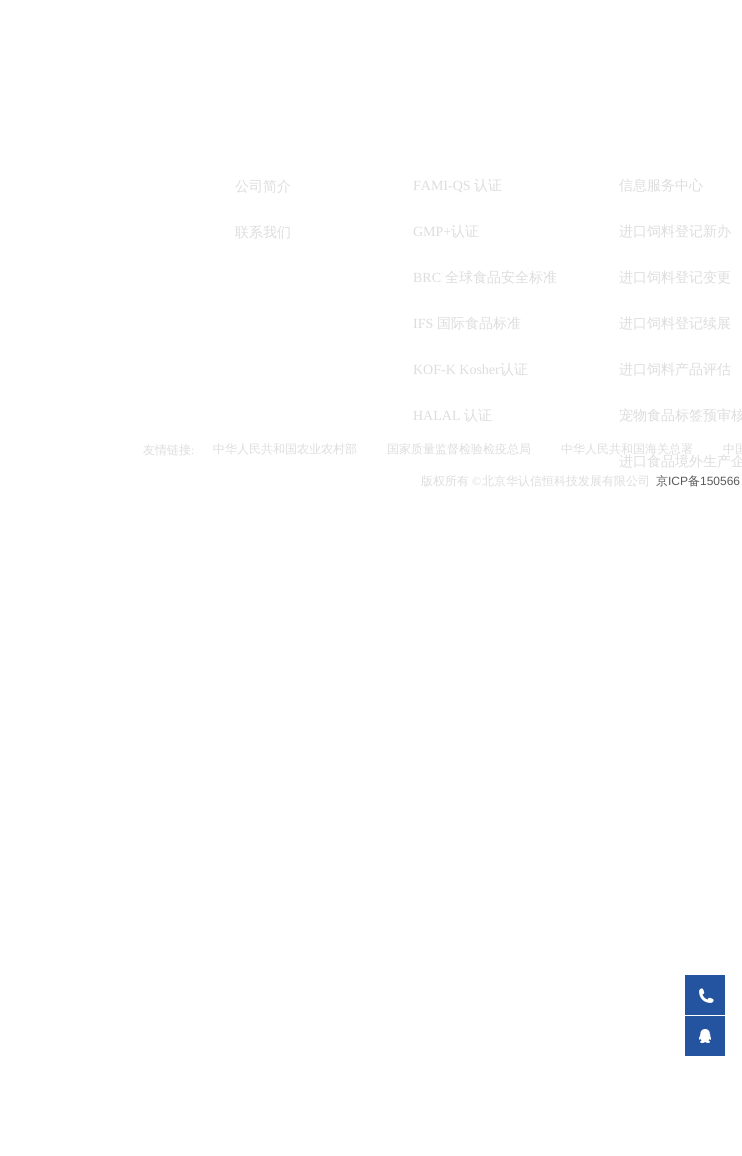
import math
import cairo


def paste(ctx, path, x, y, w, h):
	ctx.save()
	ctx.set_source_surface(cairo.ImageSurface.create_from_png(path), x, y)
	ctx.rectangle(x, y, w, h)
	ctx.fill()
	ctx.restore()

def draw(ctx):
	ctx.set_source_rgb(1, 1, 1)
	ctx.paint()
	ctx.select_font_face('WenQuanYi Zen Hei Medium')
	ctx.set_font_size(14)
	ctx.set_source_rgb(0.867, 0.867, 0.867)
	ctx.move_to(235, 191)
	ctx.show_text('公司简介')
	ctx.move_to(235, 237)
	ctx.show_text('联系我们')
	ctx.select_font_face('Liberation Serif')
	ctx.move_to(413, 190)
	ctx.show_text('FAMI-QS')
	ctx.select_font_face('WenQuanYi Zen Hei Medium')
	ctx.move_to(474, 190)
	ctx.show_text('认证')
	ctx.select_font_face('Liberation Serif')
	ctx.move_to(413, 236)
	ctx.show_text('GMP+')
	ctx.select_font_face('WenQuanYi Zen Hei Medium')
	ctx.move_to(451, 236)
	ctx.show_text('认证')
	ctx.select_font_face('Liberation Serif')
	ctx.move_to(413, 282)
	ctx.show_text('BRC')
	ctx.select_font_face('WenQuanYi Zen Hei Medium')
	ctx.move_to(445, 282)
	ctx.show_text('全球食品安全标准')
	ctx.select_font_face('Liberation Serif')
	ctx.move_to(413, 328)
	ctx.show_text('IFS')
	ctx.select_font_face('WenQuanYi Zen Hei Medium')
	ctx.move_to(437, 328)
	ctx.show_text('国际食品标准')
	ctx.select_font_face('Liberation Serif')
	ctx.move_to(413, 374)
	ctx.show_text('KOF-K Kosher')
	ctx.select_font_face('WenQuanYi Zen Hei Medium')
	ctx.move_to(500, 374)
	ctx.show_text('认证')
	ctx.select_font_face('Liberation Serif')
	ctx.move_to(413, 420)
	ctx.show_text('HALAL')
	ctx.select_font_face('WenQuanYi Zen Hei Medium')
	for x, y, s in [
		(464, 420, '认证'),
		(619, 190, '信息服务中心'),
		(619, 236, '进口饲料登记新办'),
		(619, 282, '进口饲料登记变更'),
		(619, 328, '进口饲料登记续展'),
		(619, 374, '进口饲料产品评估'),
		(619, 420, '宠物食品标签预审核'),
		(619, 466, '进口食品境外生产企'),
	]:
		ctx.move_to(x, y)
		ctx.show_text(s)
	ctx.set_font_size(12)
	ctx.move_to(143, 454)
	ctx.show_text('友情链接')
	ctx.select_font_face('Liberation Serif')
	ctx.move_to(191, 454)
	ctx.show_text(':')
	ctx.select_font_face('WenQuanYi Zen Hei Medium')
	for x, y, s in [
		(213, 453, '中华人民共和国农业农村部'),
		(387, 453, '国家质量监督检验检疫总局'),
		(561, 453, '中华人民共和国海关总署'),
		(723, 453, '中国'),
		(421, 485, '版权所有'),
	]:
		ctx.move_to(x, y)
		ctx.show_text(s)
	ctx.select_font_face('Liberation Serif')
	ctx.move_to(472, 485)
	ctx.show_text('©')
	ctx.select_font_face('WenQuanYi Zen Hei Medium')
	ctx.move_to(482, 485)
	ctx.show_text('北京华认信恒科技发展有限公司')
	ctx.set_source_rgb(0.353, 0.353, 0.353)
	ctx.move_to(656, 485)
	ctx.show_text('京')
	ctx.select_font_face('Liberation Sans')
	ctx.move_to(668, 485)
	ctx.show_text('ICP')
	ctx.select_font_face('WenQuanYi Zen Hei Medium')
	ctx.move_to(688, 485)
	ctx.show_text('备')
	ctx.select_font_face('Liberation Sans')
	ctx.move_to(700, 485)
	ctx.show_text('150566')
	paste(ctx, 'media/1.png', 685, 975, 40, 40)
	paste(ctx, 'media/2.png', 685, 1016, 40, 40)


surface = cairo.ImageSurface(cairo.FORMAT_RGB24, 742, 1156)
ctx = cairo.Context(surface)
options = cairo.FontOptions()
options.set_hint_metrics(cairo.HINT_METRICS_OFF)
options.set_hint_style(cairo.HINT_STYLE_NONE)
ctx.set_font_options(options)
ctx.set_miter_limit(4)
draw(ctx)
surface.write_to_png('image.png')
